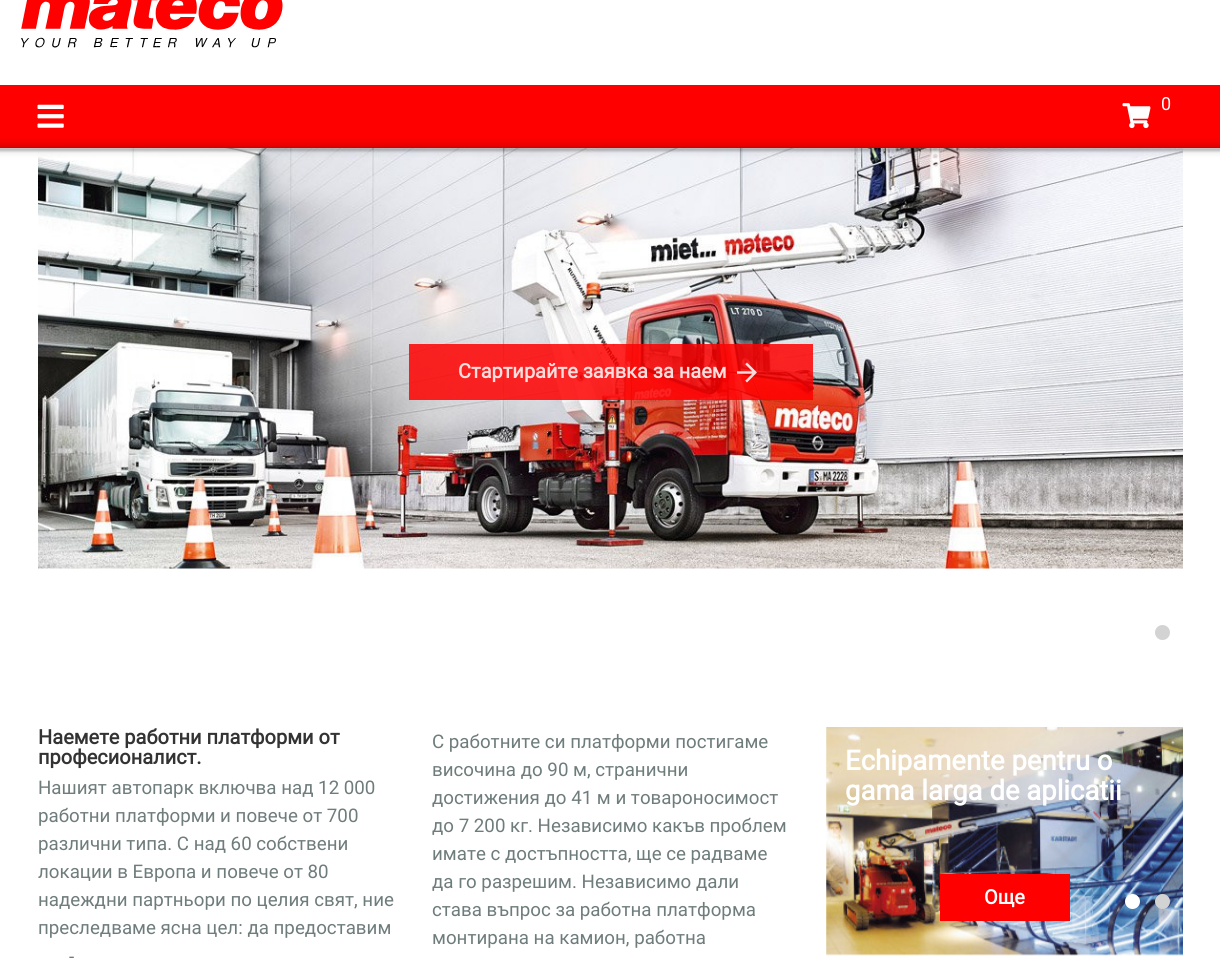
import math
import cairo


def round_path(ctx, x, y, w, h, r):
	ctx.new_sub_path()
	for i, (u, v) in enumerate([(x + w - r, y + h - r), (x + r, y + h - r), (x + r, y + r), (x + w - r, y + r)]):
		ctx.arc(u, v, r, i * math.pi / 2, (i + 1) * math.pi / 2)
	ctx.close_path()

def blur_box(ctx, x, y, w, h, r, blur, alpha):
	ctx.push_group_with_content(cairo.CONTENT_ALPHA)
	ctx.set_operator(cairo.OPERATOR_SOURCE)
	for i in range(15, -16, -2):
		e = blur * i / 6
		if min(w, h) + 2 * e > 0:
			ctx.set_source_rgba(0, 0, 0, alpha * math.erfc((i - 1) / 8.5) / 2)
			round_path(ctx, x - e, y - e, w + 2 * e, h + 2 * e, max(0, min(r + e + blur * .6, min(w, h) / 2 + e)))
			ctx.fill()
	ctx.mask(ctx.pop_group())

def paste(ctx, path, x, y, w, h):
	ctx.save()
	ctx.set_source_surface(cairo.ImageSurface.create_from_png(path), x, y)
	ctx.rectangle(x, y, w, h)
	ctx.fill()
	ctx.restore()

def draw(ctx):
	ctx.set_source_rgb(1, 1, 1)
	ctx.paint()
	ctx.set_source_rgb(1, 0, 0)
	ctx.rectangle(0, 85, 1220, 63)
	ctx.fill()
	paste(ctx, 'media/1.png', 21, 0, 262, 48)
	paste(ctx, 'media/2.png', 37, 104, 27, 24)
	paste(ctx, 'media/3.png', 1122, 103, 29, 26)
	ctx.new_path()
	ctx.move_to(1166, 91.5)
	ctx.curve_to(1175, 91.5, 1182, 97, 1182, 104)
	ctx.curve_to(1182, 111, 1175, 116.5, 1166, 116.5)
	ctx.curve_to(1157, 116.5, 1150, 111, 1150, 104)
	ctx.curve_to(1150, 97, 1157, 91.5, 1166, 91.5)
	ctx.close_path()
	ctx.fill()
	ctx.select_font_face('Roboto')
	ctx.set_font_size(18)
	ctx.set_source_rgb(1, 1, 1)
	ctx.move_to(1161, 110)
	ctx.show_text('0')
	paste(ctx, 'media/4.png', 38, 148, 1145, 421)
	ctx.set_source_rgb(0, 0, 0)
	blur_box(ctx, -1, 148, 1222, 3, 0, 1, 0.2)
	blur_box(ctx, -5, 144, 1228, 7, 0, 4, 0.15)
	ctx.set_source_rgba(1, 0, 0, 0.85)
	ctx.rectangle(409, 344, 404, 56)
	ctx.fill()
	ctx.select_font_face('Roboto', cairo.FONT_SLANT_NORMAL, cairo.FONT_WEIGHT_BOLD)
	ctx.set_font_size(20)
	ctx.set_source_rgb(0.996, 0.867, 0.867)
	ctx.move_to(458, 378)
	ctx.show_text('Стартирайте заявка за наем')
	paste(ctx, 'media/5.png', 737, 362, 20, 21)
	ctx.set_source_rgb(0.827, 0.827, 0.827)
	ctx.arc(1162.5, 632.5, 7.5, 0, 2 * math.pi)
	ctx.fill()
	ctx.set_source_rgb(0.2, 0.2, 0.2)
	ctx.move_to(38, 744)
	ctx.show_text('Наемете работни платформи от')
	ctx.move_to(38, 764)
	ctx.show_text('професионалист.')
	ctx.select_font_face('Roboto')
	ctx.set_font_size(18.75)
	ctx.set_source_rgb(0.435, 0.486, 0.486)
	for x, y, s in [
		(38, 794, 'Нашият автопарк включва над 12 000'),
		(38, 822, 'работни платформи и повече от 700'),
		(38, 850, 'различни типа. С над 60 собствени'),
		(38, 878, 'локации в Европа и повече от 80'),
		(38, 906, 'надеждни партньори по целия свят, ние'),
		(38, 934, 'преследваме ясна цел: да предоставим'),
		(69, 963, '-'),
		(432, 748, 'С работните си платформи постигаме'),
		(432, 776, 'височина до 90 м, странични'),
		(432, 804, 'достижения до 41 м и товароносимост'),
		(432, 832, 'до 7 200 кг. Независимо какъв проблем'),
		(432, 860, 'имате с достъпността, ще се радваме'),
		(432, 888, 'да го разрешим. Независимо дали'),
		(432, 916, 'става въпрос за работна платформа'),
		(432, 944, 'монтирана на камион, работна'),
	]:
		ctx.move_to(x, y)
		ctx.show_text(s)
	paste(ctx, 'media/6.png', 826, 727, 357, 229)
	ctx.select_font_face('Roboto', cairo.FONT_SLANT_NORMAL, cairo.FONT_WEIGHT_BOLD)
	ctx.set_font_size(27.5)
	ctx.set_source_rgb(1, 1, 1)
	ctx.move_to(845, 770)
	ctx.show_text('Echipamente pentru o')
	ctx.move_to(845, 800)
	ctx.show_text('gama larga de aplicatii')
	ctx.set_source_rgb(1, 0, 0)
	ctx.rectangle(940, 874, 130, 47)
	ctx.fill()
	ctx.set_font_size(20)
	ctx.set_source_rgb(1, 1, 1)
	ctx.move_to(984, 904)
	ctx.show_text('Още')
	ctx.new_path()
	ctx.arc(1132.5, 901.5, 7.5, 0, 2 * math.pi)
	ctx.fill()
	ctx.set_source_rgb(0.827, 0.827, 0.827)
	ctx.arc(1162.5, 901.5, 7.5, 0, 2 * math.pi)
	ctx.fill()


surface = cairo.ImageSurface(cairo.FORMAT_RGB24, 1220, 958)
ctx = cairo.Context(surface)
options = cairo.FontOptions()
options.set_hint_metrics(cairo.HINT_METRICS_OFF)
options.set_hint_style(cairo.HINT_STYLE_NONE)
ctx.set_font_options(options)
ctx.set_miter_limit(4)
draw(ctx)
surface.write_to_png('image.png')
